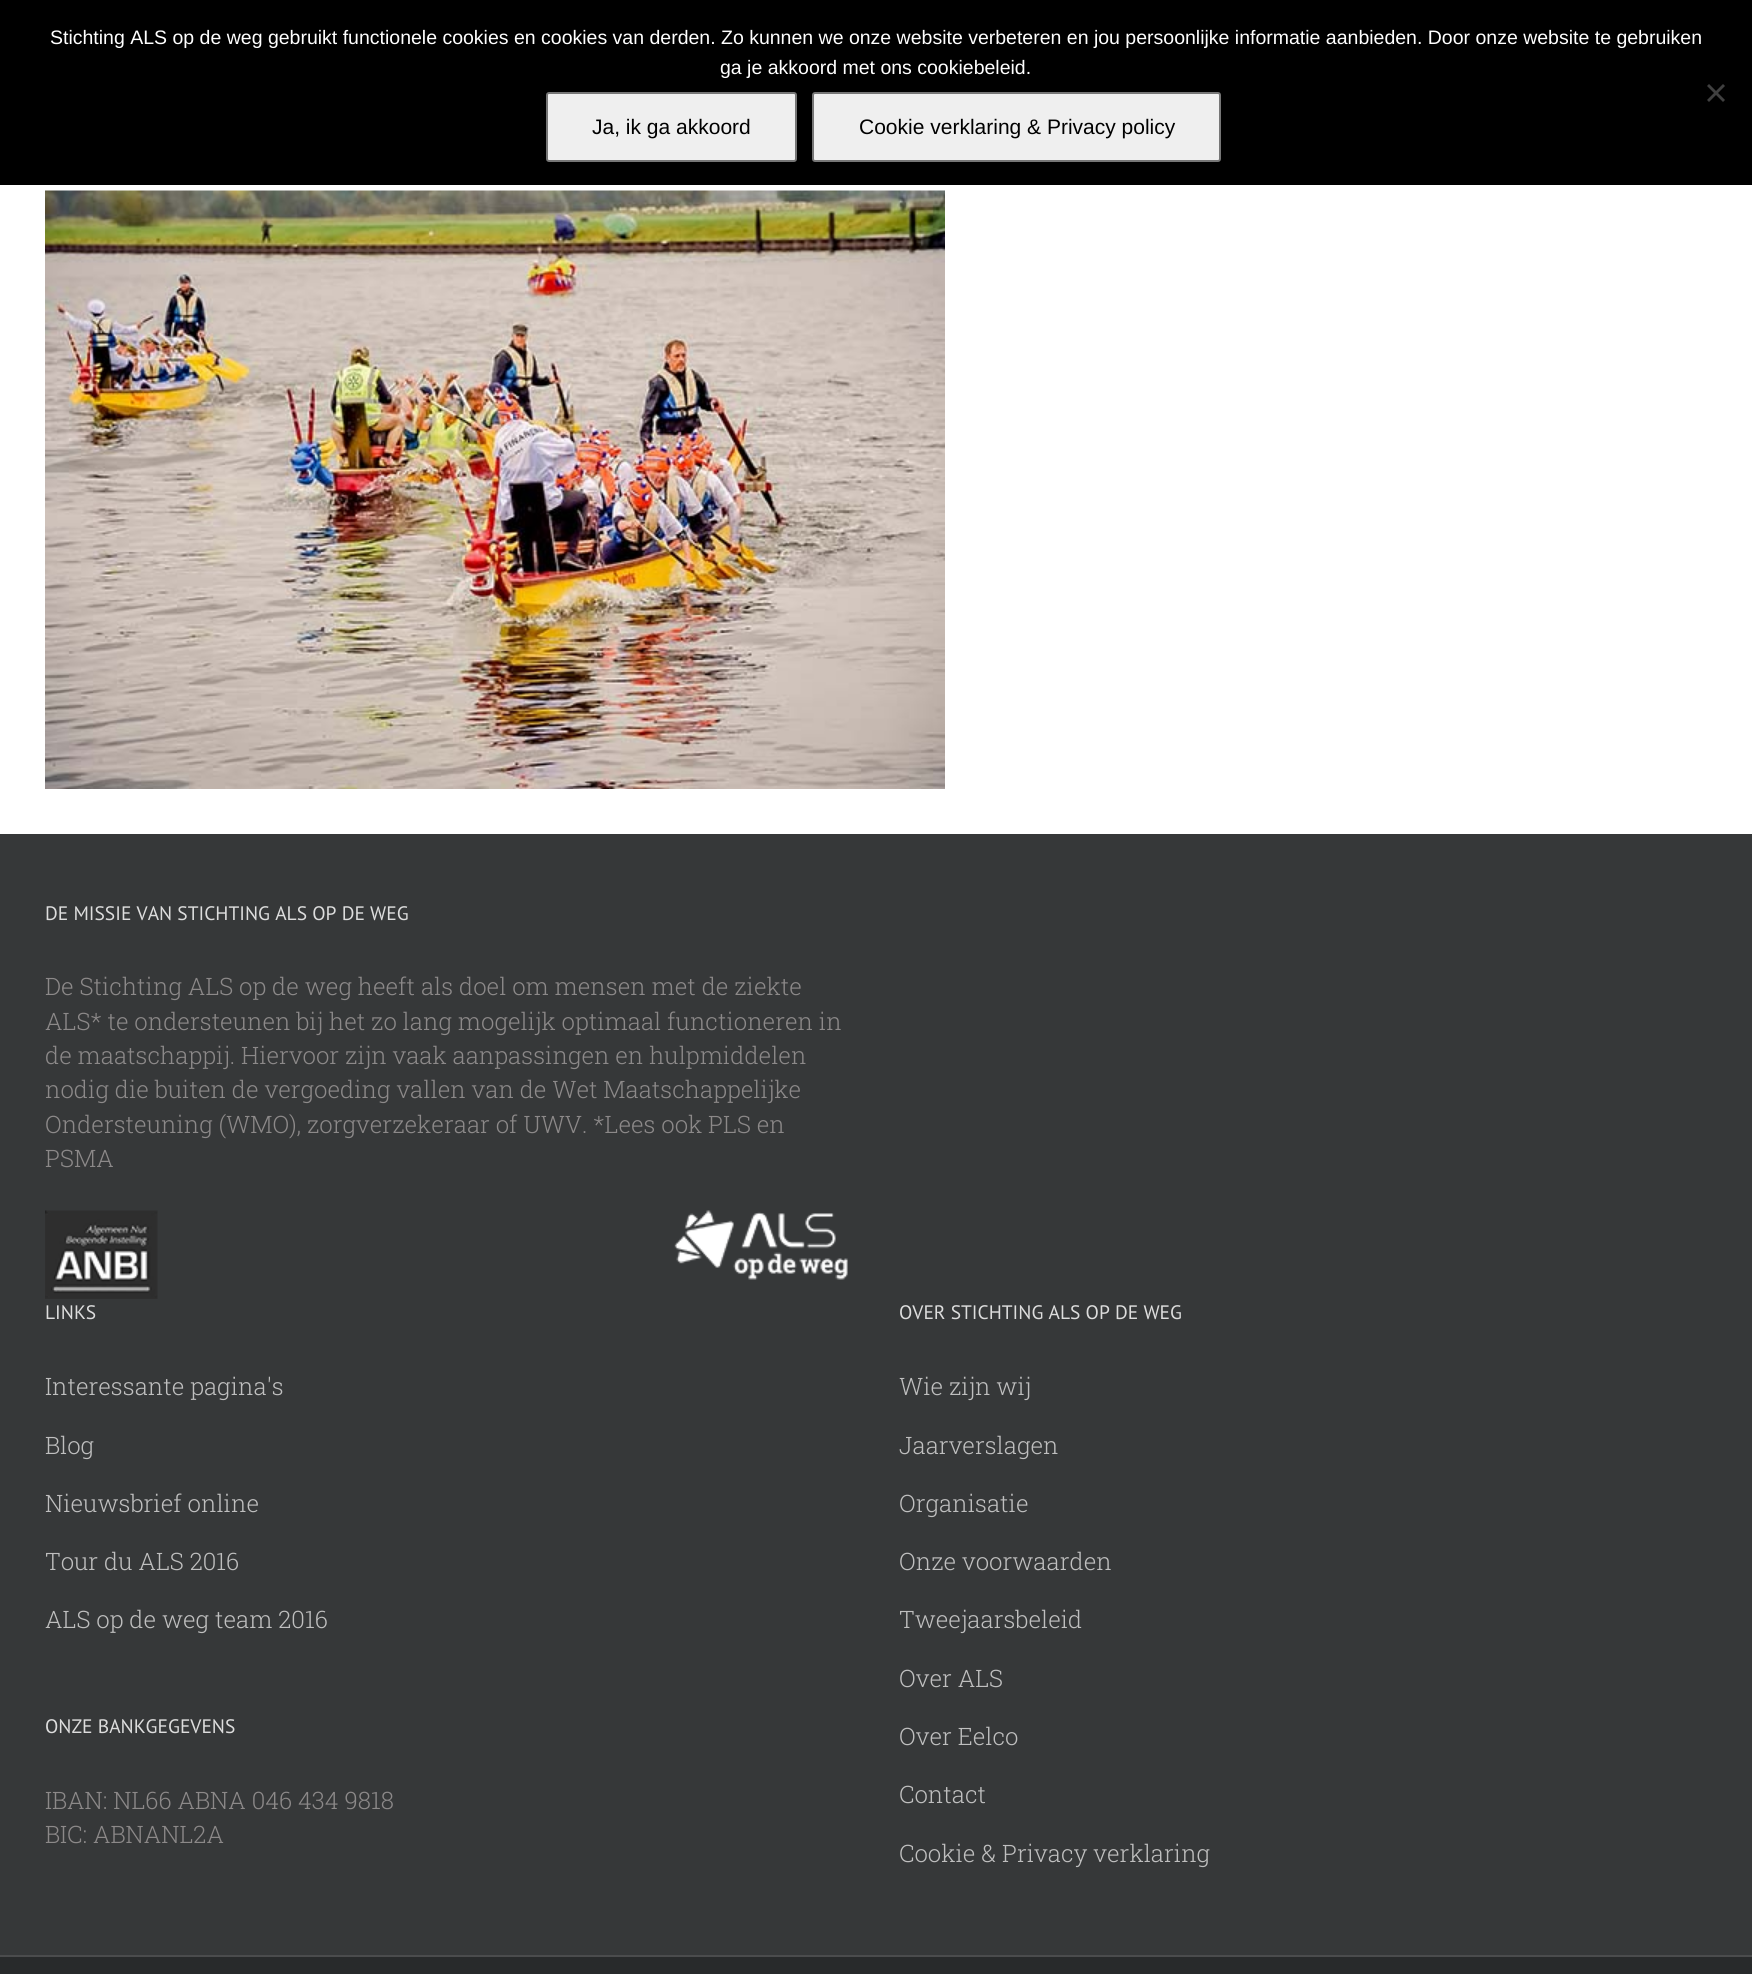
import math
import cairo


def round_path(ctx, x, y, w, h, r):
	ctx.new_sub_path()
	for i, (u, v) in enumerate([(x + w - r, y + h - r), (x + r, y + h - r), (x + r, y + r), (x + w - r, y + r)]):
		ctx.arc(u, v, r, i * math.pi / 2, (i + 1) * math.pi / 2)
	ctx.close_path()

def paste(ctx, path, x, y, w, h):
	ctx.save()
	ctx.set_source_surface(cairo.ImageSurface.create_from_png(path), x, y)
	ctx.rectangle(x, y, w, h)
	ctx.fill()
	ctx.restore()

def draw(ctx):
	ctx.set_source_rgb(1, 1, 1)
	ctx.paint()
	ctx.set_source_rgb(0, 0, 0)
	ctx.rectangle(0, 0, 1752, 185)
	ctx.fill()
	ctx.select_font_face('Liberation Sans')
	ctx.set_font_size(19.5)
	ctx.set_source_rgb(1, 1, 1)
	ctx.move_to(50, 44)
	ctx.show_text('Stichting ALS op de weg gebruikt functionele cookies en cookies van derden. Zo kunnen we onze website verbeteren en jou persoonlijke informatie aanbieden. Door onze website te gebruiken')
	ctx.move_to(720, 74)
	ctx.show_text('ga je akkoord met ons cookiebeleid.')
	ctx.set_source_rgb(0.251, 0.251, 0.251)
	ctx.new_path()
	ctx.move_to(1723, 84)
	ctx.line_to(1725, 86)
	ctx.line_to(1709, 102)
	ctx.line_to(1707, 100)
	ctx.close_path()
	ctx.fill()
	ctx.new_path()
	ctx.move_to(1707, 86)
	ctx.line_to(1709, 84)
	ctx.line_to(1725, 100)
	ctx.line_to(1723, 102)
	ctx.close_path()
	ctx.fill()
	ctx.set_source_rgb(0.937, 0.937, 0.937)
	round_path(ctx, 547, 93, 249, 68, 2)
	ctx.fill_preserve()
	ctx.set_source_rgb(0.463, 0.463, 0.463)
	ctx.stroke()
	ctx.set_font_size(21)
	ctx.set_source_rgb(0, 0, 0)
	ctx.move_to(592, 134)
	ctx.show_text('Ja, ik ga akkoord')
	ctx.set_source_rgb(0.937, 0.937, 0.937)
	round_path(ctx, 813, 93, 407, 68, 2)
	ctx.fill_preserve()
	ctx.set_source_rgb(0.463, 0.463, 0.463)
	ctx.stroke()
	ctx.set_source_rgb(0, 0, 0)
	ctx.move_to(859, 134)
	ctx.show_text('Cookie verklaring & Privacy policy')
	paste(ctx, 'media/1.png', 45, 190, 900, 599)
	ctx.set_source_rgb(0.212, 0.22, 0.224)
	ctx.rectangle(0, 834, 1752, 1121)
	ctx.fill()
	ctx.select_font_face('PT Sans')
	ctx.set_font_size(19.5)
	ctx.set_source_rgb(0.867, 0.867, 0.867)
	ctx.move_to(45, 920)
	ctx.show_text('DE MISSIE VAN STICHTING ALS OP DE WEG')
	ctx.select_font_face('Roboto Slab Light')
	ctx.set_font_size(24)
	ctx.set_source_rgb(0.549, 0.537, 0.537)
	for x, y, s in [
		(45, 995, 'De Stichting ALS op de weg heeft als doel om mensen met de ziekte'),
		(45, 1030, 'ALS* te ondersteunen bij het zo lang mogelijk optimaal functioneren in'),
		(45, 1064, 'de maatschappij. Hiervoor zijn vaak aanpassingen en hulpmiddelen'),
		(45, 1098, 'nodig die buiten de vergoeding vallen van de Wet Maatschappelijke'),
		(45, 1133, 'Ondersteuning (WMO), zorgverzekeraar of UWV. *Lees ook PLS en'),
		(45, 1167, 'PSMA'),
	]:
		ctx.move_to(x, y)
		ctx.show_text(s)
	paste(ctx, 'media/2.png', 45, 1210, 113, 89)
	paste(ctx, 'media/3.png', 674, 1210, 174, 70)
	ctx.select_font_face('PT Sans')
	ctx.set_font_size(19.5)
	ctx.set_source_rgb(0.867, 0.867, 0.867)
	ctx.move_to(45, 1319)
	ctx.show_text('LINKS')
	ctx.select_font_face('Roboto Slab Light')
	ctx.set_font_size(24)
	ctx.set_source_rgb(0.749, 0.749, 0.749)
	for x, y, s in [
		(45, 1395, 'Interessante pagina\'s'),
		(45, 1454, 'Blog'),
		(45, 1512, 'Nieuwsbrief online'),
		(45, 1570, 'Tour du ALS 2016'),
		(45, 1628, 'ALS op de weg team 2016'),
	]:
		ctx.move_to(x, y)
		ctx.show_text(s)
	ctx.select_font_face('PT Sans')
	ctx.set_font_size(19.5)
	ctx.set_source_rgb(0.867, 0.867, 0.867)
	ctx.move_to(45, 1733)
	ctx.show_text('ONZE BANKGEGEVENS')
	ctx.select_font_face('Roboto Slab Light')
	ctx.set_font_size(24)
	ctx.set_source_rgb(0.549, 0.537, 0.537)
	ctx.move_to(45, 1809)
	ctx.show_text('IBAN: NL66 ABNA 046 434 9818')
	ctx.move_to(45, 1843)
	ctx.show_text('BIC: ABNANL2A')
	ctx.select_font_face('PT Sans')
	ctx.set_font_size(19.5)
	ctx.set_source_rgb(0.867, 0.867, 0.867)
	ctx.move_to(899, 1319)
	ctx.show_text('OVER STICHTING ALS OP DE WEG')
	ctx.select_font_face('Roboto Slab Light')
	ctx.set_font_size(24)
	ctx.set_source_rgb(0.749, 0.749, 0.749)
	for x, y, s in [
		(899, 1395, 'Wie zijn wij'),
		(899, 1454, 'Jaarverslagen'),
		(899, 1512, 'Organisatie'),
		(899, 1570, 'Onze voorwaarden'),
		(899, 1628, 'Tweejaarsbeleid'),
		(899, 1687, 'Over ALS'),
		(899, 1745, 'Over Eelco'),
		(899, 1803, 'Contact'),
		(899, 1862, 'Cookie & Privacy verklaring'),
	]:
		ctx.move_to(x, y)
		ctx.show_text(s)
	ctx.set_source_rgb(0.157, 0.165, 0.169)
	ctx.rectangle(0, 1957, 1752, 17)
	ctx.fill()
	ctx.set_source_rgb(0.294, 0.298, 0.302)
	ctx.rectangle(0, 1955, 1752, 2)
	ctx.fill()


surface = cairo.ImageSurface(cairo.FORMAT_RGB24, 1752, 1974)
ctx = cairo.Context(surface)
options = cairo.FontOptions()
options.set_hint_metrics(cairo.HINT_METRICS_OFF)
options.set_hint_style(cairo.HINT_STYLE_NONE)
ctx.set_font_options(options)
ctx.set_miter_limit(4)
draw(ctx)
surface.write_to_png('image.png')
